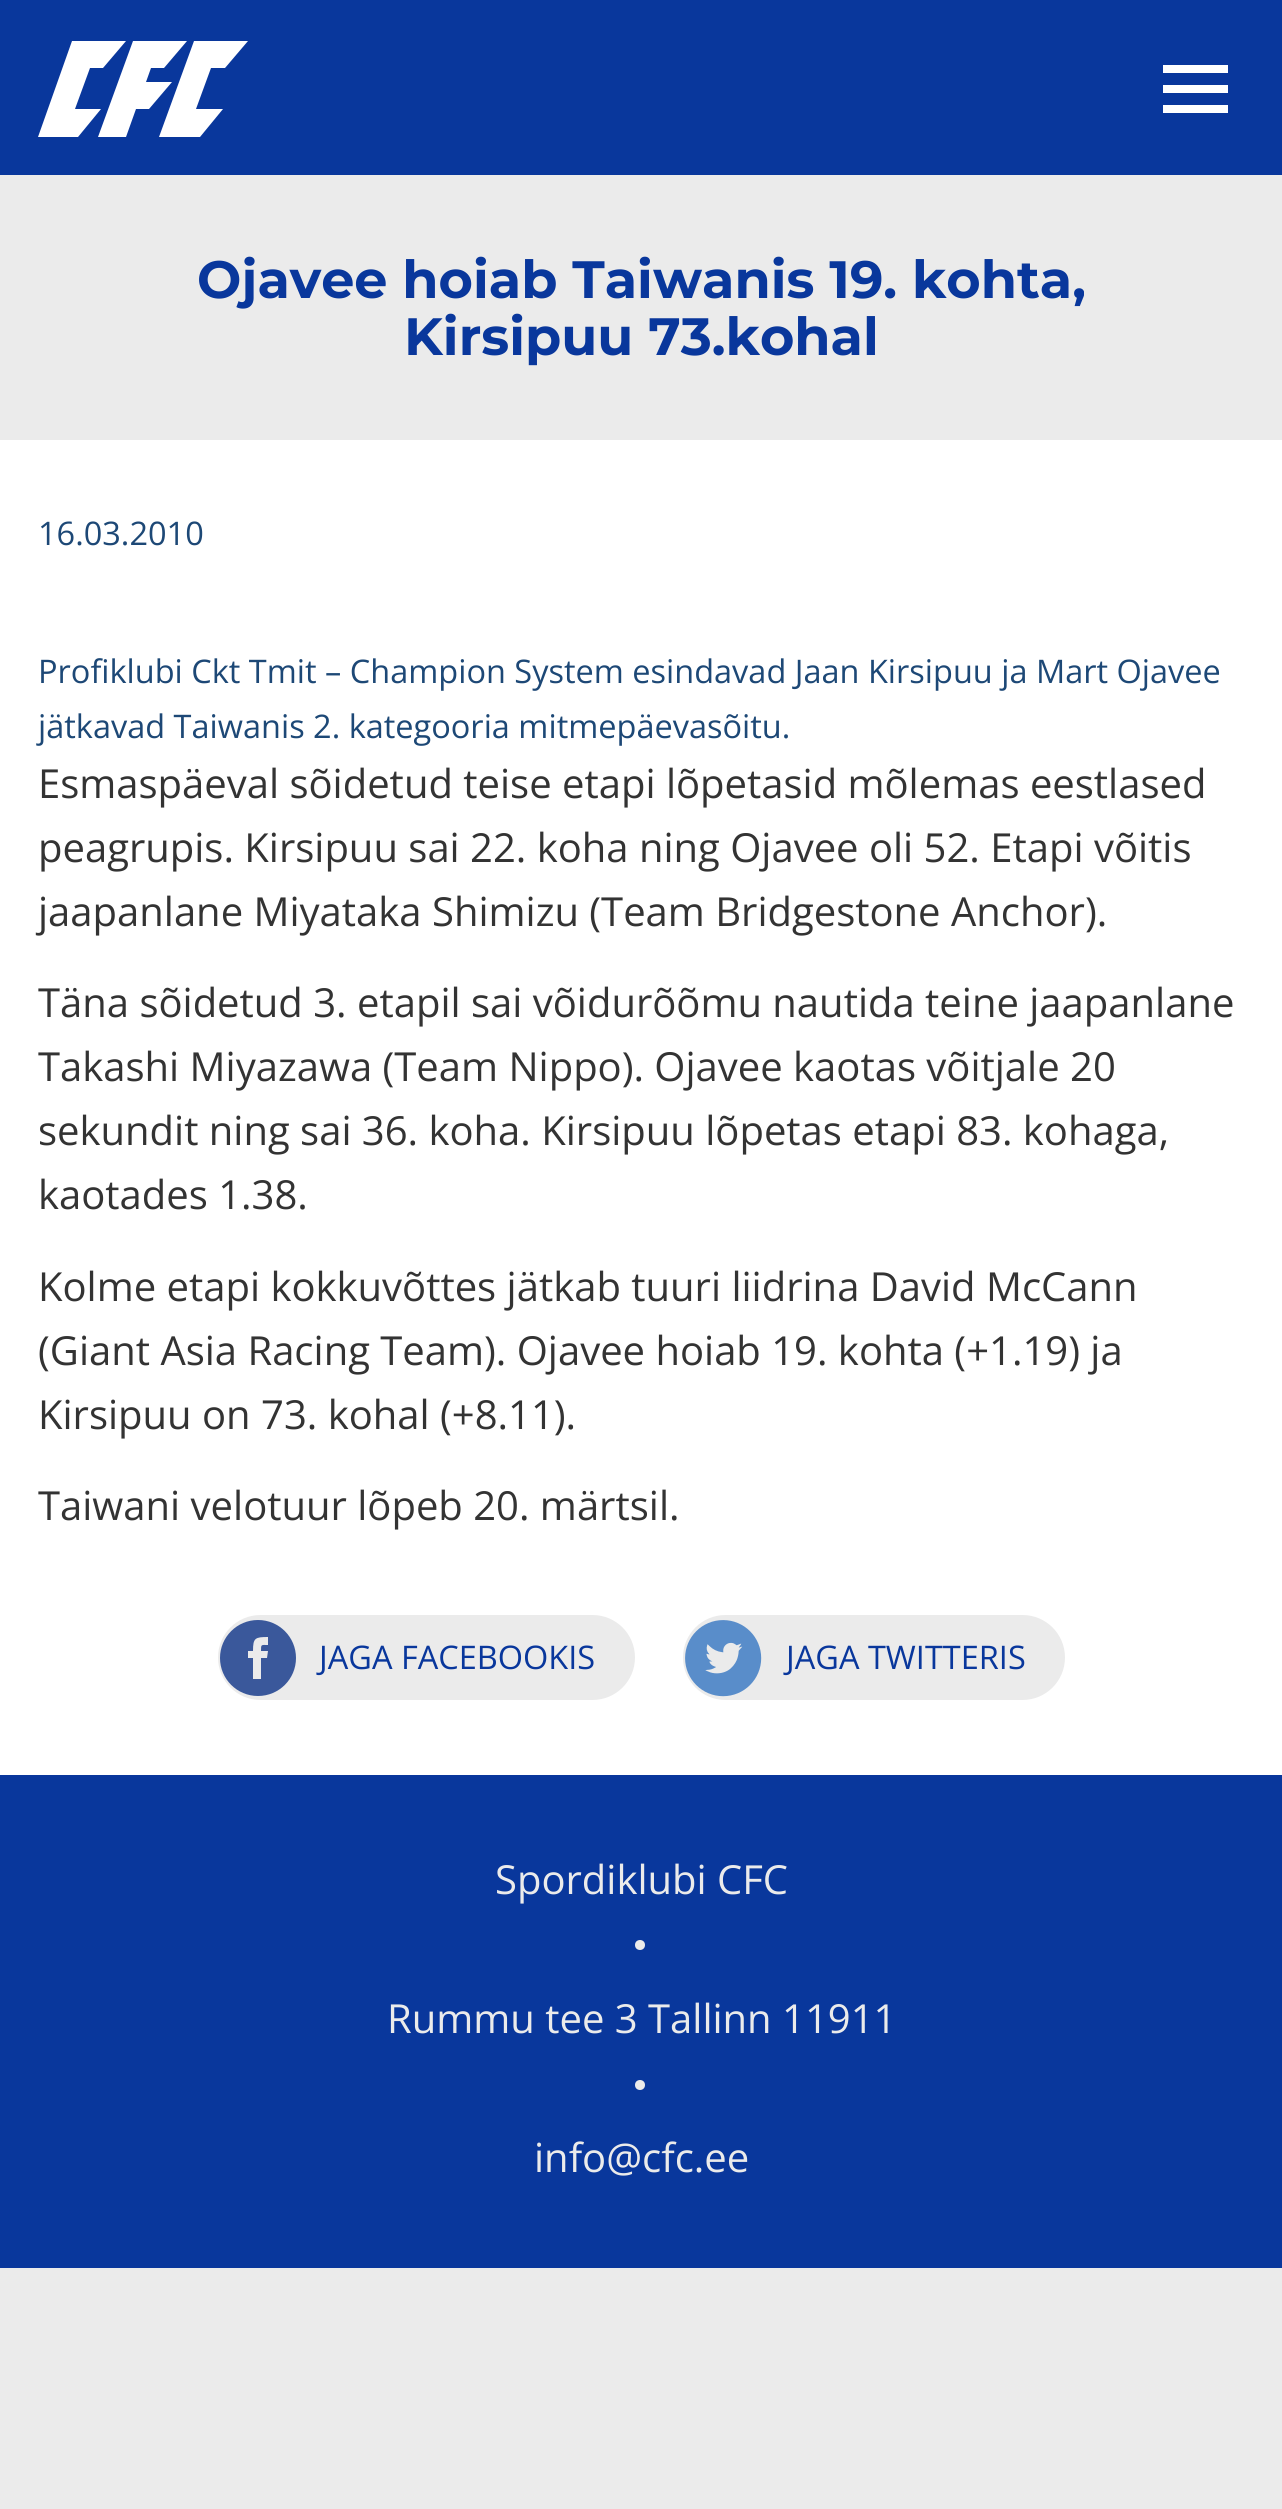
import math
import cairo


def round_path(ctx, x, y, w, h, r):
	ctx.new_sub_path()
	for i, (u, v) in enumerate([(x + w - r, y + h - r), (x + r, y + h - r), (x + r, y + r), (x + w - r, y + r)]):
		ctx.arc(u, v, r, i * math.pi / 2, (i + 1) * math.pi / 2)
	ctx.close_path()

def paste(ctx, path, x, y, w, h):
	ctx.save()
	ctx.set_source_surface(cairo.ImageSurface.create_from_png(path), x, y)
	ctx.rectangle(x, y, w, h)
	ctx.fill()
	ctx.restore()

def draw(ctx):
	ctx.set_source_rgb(0.918, 0.918, 0.918)
	ctx.paint()
	ctx.set_source_rgb(0.039, 0.216, 0.612)
	ctx.rectangle(0, 0, 1282, 175)
	ctx.fill()
	ctx.set_source_rgb(1, 1, 1)
	ctx.new_path()
	ctx.move_to(75, 109)
	ctx.line_to(90, 68)
	ctx.line_to(103, 68)
	ctx.line_to(126, 41)
	ctx.line_to(72, 41)
	ctx.line_to(38, 137)
	ctx.line_to(78, 137)
	ctx.line_to(101, 109)
	ctx.close_path()
	ctx.move_to(194, 41)
	ctx.line_to(159, 137)
	ctx.line_to(200, 137)
	ctx.line_to(223, 109)
	ctx.line_to(196, 109)
	ctx.line_to(211, 68)
	ctx.line_to(225, 68)
	ctx.line_to(248, 41)
	ctx.close_path()
	ctx.move_to(172, 82)
	ctx.line_to(146, 82)
	ctx.line_to(151, 68)
	ctx.line_to(164, 68)
	ctx.line_to(187, 41)
	ctx.line_to(133, 41)
	ctx.line_to(98, 137)
	ctx.line_to(126, 137)
	ctx.line_to(136, 109)
	ctx.line_to(149, 109)
	ctx.close_path()
	ctx.fill()
	ctx.rectangle(1163, 85, 65, 8)
	ctx.rectangle(1163, 65, 65, 8)
	ctx.rectangle(1163, 105, 65, 8)
	ctx.fill()
	ctx.select_font_face('Montserrat', cairo.FONT_SLANT_NORMAL, cairo.FONT_WEIGHT_BOLD)
	ctx.set_font_size(52.5)
	ctx.set_source_rgb(0.039, 0.216, 0.612)
	ctx.move_to(197, 298)
	ctx.show_text('Ojavee hoiab Taiwanis 19. kohta,')
	ctx.move_to(404, 355)
	ctx.show_text('Kirsipuu 73.kohal')
	ctx.set_source_rgb(1, 1, 1)
	ctx.rectangle(0, 440, 1282, 1335)
	ctx.fill()
	ctx.select_font_face('Open Sans')
	ctx.set_font_size(32.5)
	ctx.set_source_rgb(0.114, 0.282, 0.463)
	for x, y, s in [
		(38, 545, '16.03.2010'),
		(38, 683, 'Profiklubi Ckt Tmit – Champion System esindavad Jaan Kirsipuu ja Mart Ojavee'),
		(38, 738, 'jätkavad Taiwanis 2. kategooria mitmepäevasõitu.'),
	]:
		ctx.move_to(x, y)
		ctx.show_text(s)
	ctx.set_font_size(40)
	ctx.set_source_rgb(0.2, 0.2, 0.2)
	for x, y, s in [
		(38, 798, 'Esmaspäeval sõidetud teise etapi lõpetasid mõlemas eestlased'),
		(38, 862, 'peagrupis. Kirsipuu sai 22. koha ning Ojavee oli 52. Etapi võitis'),
		(38, 926, 'jaapanlane Miyataka Shimizu (Team Bridgestone Anchor).'),
		(38, 1017, 'Täna sõidetud 3. etapil sai võidurõõmu nautida teine jaapanlane'),
		(38, 1081, 'Takashi Miyazawa (Team Nippo). Ojavee kaotas võitjale 20'),
		(38, 1145, 'sekundit ning sai 36. koha. Kirsipuu lõpetas etapi 83. kohaga,'),
		(38, 1209, 'kaotades 1.38.'),
		(38, 1301, 'Kolme etapi kokkuvõttes jätkab tuuri liidrina David McCann'),
		(38, 1365, '(Giant Asia Racing Team). Ojavee hoiab 19. kohta (+1.19) ja'),
		(38, 1429, 'Kirsipuu on 73. kohal (+8.11).'),
		(38, 1520, 'Taiwani velotuur lõpeb 20. märtsil.'),
	]:
		ctx.move_to(x, y)
		ctx.show_text(s)
	ctx.set_source_rgb(0.918, 0.918, 0.918)
	round_path(ctx, 218, 1615, 417, 85, 42.5)
	ctx.fill()
	ctx.set_source_rgb(0.227, 0.345, 0.608)
	ctx.set_fill_rule(cairo.FILL_RULE_EVEN_ODD)
	ctx.new_path()
	ctx.move_to(253, 1679)
	ctx.line_to(261, 1679)
	ctx.line_to(261, 1658)
	ctx.line_to(267, 1658)
	ctx.line_to(268, 1651)
	ctx.line_to(261, 1651)
	ctx.curve_to(261, 1644, 261, 1645, 268, 1645)
	ctx.line_to(268, 1637)
	ctx.curve_to(255, 1637, 253, 1638, 253, 1651)
	ctx.line_to(248, 1651)
	ctx.line_to(248, 1658)
	ctx.line_to(253, 1658)
	ctx.close_path()
	ctx.move_to(258, 1696)
	ctx.curve_to(237, 1696, 220, 1679, 220, 1658)
	ctx.curve_to(220, 1637, 237, 1620, 258, 1620)
	ctx.curve_to(279, 1620, 296, 1637, 296, 1658)
	ctx.curve_to(296, 1679, 279, 1696, 258, 1696)
	ctx.close_path()
	ctx.fill()
	ctx.set_font_size(32.5)
	ctx.set_source_rgb(0.039, 0.216, 0.612)
	ctx.move_to(319, 1669)
	ctx.show_text('JAGA FACEBOOKIS')
	ctx.set_source_rgb(0.918, 0.918, 0.918)
	round_path(ctx, 683, 1615, 382, 85, 42.5)
	ctx.fill()
	paste(ctx, 'media/1.png', 685, 1620, 77, 77)
	ctx.set_source_rgb(0.039, 0.216, 0.612)
	ctx.move_to(786, 1669)
	ctx.show_text('JAGA TWITTERIS')
	ctx.rectangle(0, 1775, 1282, 493)
	ctx.fill()
	ctx.set_font_size(40)
	ctx.set_source_rgb(0.918, 0.918, 0.918)
	ctx.move_to(495, 1894)
	ctx.show_text('Spordiklubi CFC')
	ctx.new_path()
	ctx.arc(640, 1945, 5, 0, 2 * math.pi)
	ctx.fill()
	ctx.move_to(387, 2033)
	ctx.show_text('Rummu tee 3 Tallinn 11911')
	ctx.new_path()
	ctx.arc(640, 2085, 5, 0, 2 * math.pi)
	ctx.fill()
	ctx.move_to(534, 2172)
	ctx.show_text('info@cfc.ee')


surface = cairo.ImageSurface(cairo.FORMAT_RGB24, 1282, 2509)
ctx = cairo.Context(surface)
options = cairo.FontOptions()
options.set_hint_metrics(cairo.HINT_METRICS_OFF)
options.set_hint_style(cairo.HINT_STYLE_NONE)
ctx.set_font_options(options)
ctx.set_miter_limit(4)
draw(ctx)
surface.write_to_png('image.png')
